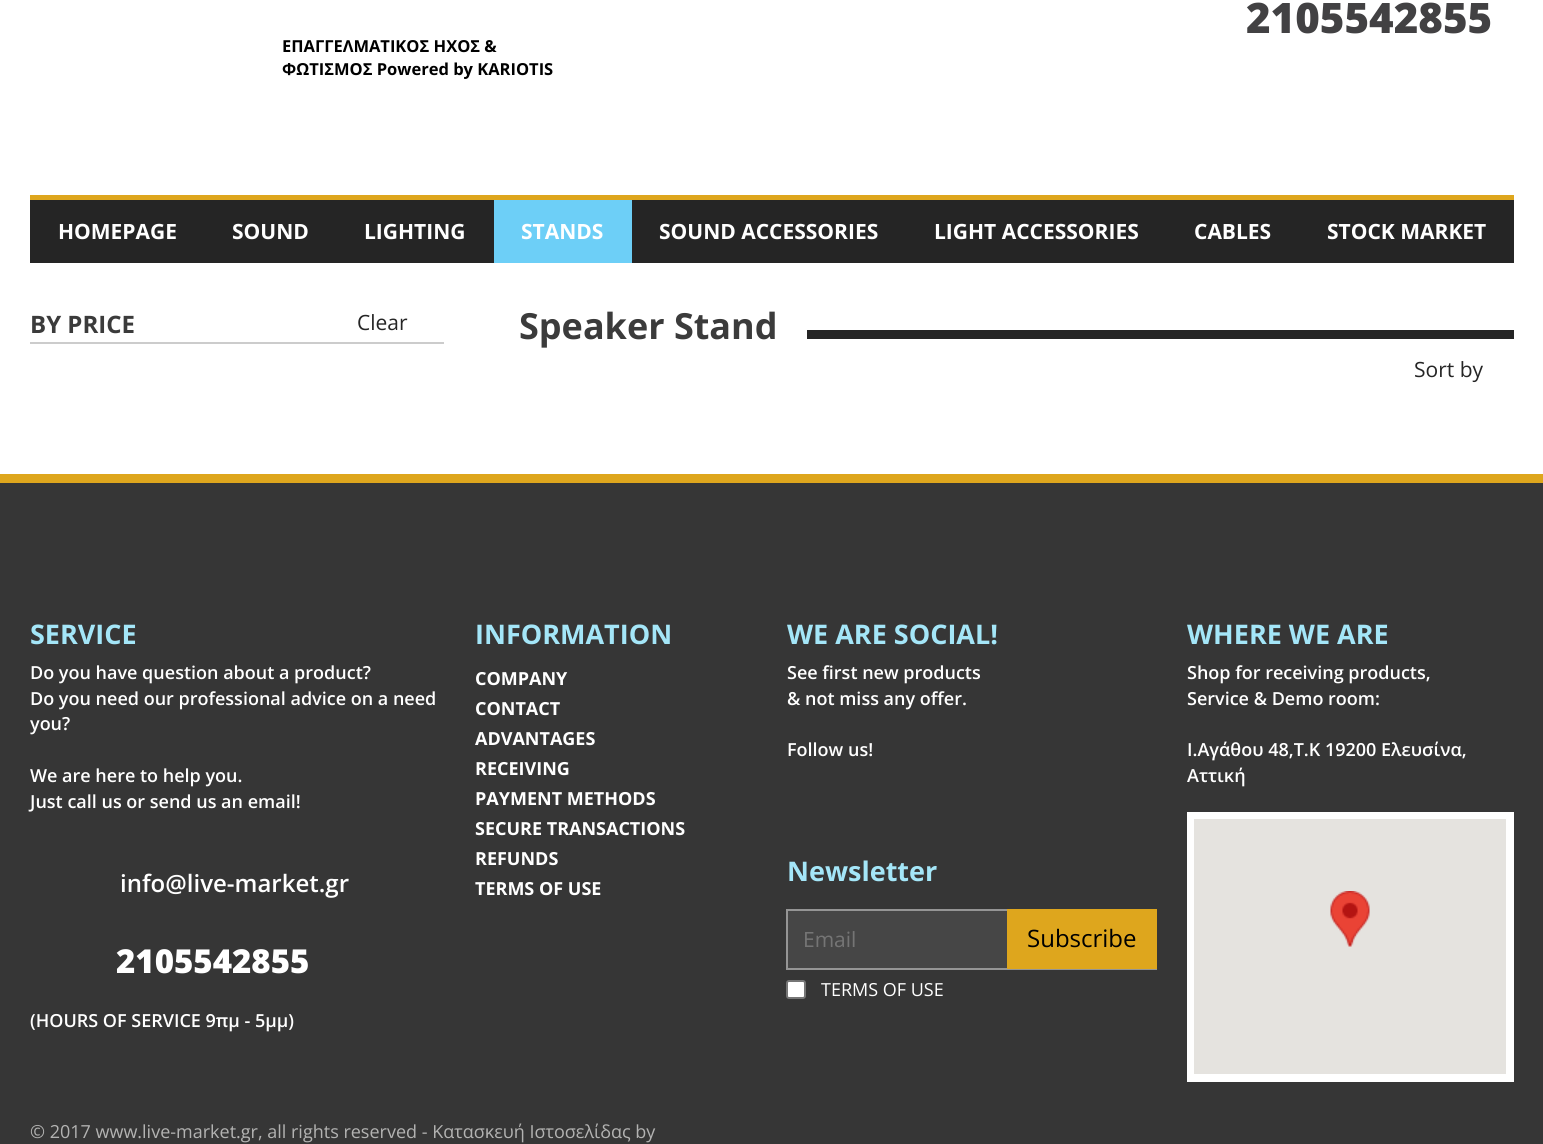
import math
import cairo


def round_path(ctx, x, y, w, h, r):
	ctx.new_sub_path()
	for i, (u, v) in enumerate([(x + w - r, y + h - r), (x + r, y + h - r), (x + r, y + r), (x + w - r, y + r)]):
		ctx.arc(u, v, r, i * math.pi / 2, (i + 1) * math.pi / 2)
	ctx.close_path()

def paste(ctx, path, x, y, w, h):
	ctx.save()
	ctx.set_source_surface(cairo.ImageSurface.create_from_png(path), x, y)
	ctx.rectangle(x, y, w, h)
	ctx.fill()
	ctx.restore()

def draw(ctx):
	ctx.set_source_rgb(1, 1, 1)
	ctx.paint()
	ctx.select_font_face('Open Sans ExtraBold')
	ctx.set_font_size(42)
	ctx.set_source_rgb(0.259, 0.255, 0.263)
	ctx.move_to(1246, 33)
	ctx.show_text('2105542855')
	ctx.select_font_face('Open Sans', cairo.FONT_SLANT_NORMAL, cairo.FONT_WEIGHT_BOLD)
	ctx.set_font_size(16.5)
	ctx.set_source_rgb(0, 0, 0)
	ctx.move_to(282, 52)
	ctx.show_text('ΕΠΑΓΓΕΛΜΑΤΙΚΟΣ ΗΧΟΣ &')
	ctx.move_to(282, 75)
	ctx.show_text('ΦΩΤΙΣΜΟΣ Powered by KARIOTIS')
	ctx.set_source_rgb(0.145, 0.145, 0.145)
	ctx.rectangle(30, 200, 1484, 63)
	ctx.fill()
	ctx.set_source_rgb(0.871, 0.651, 0.114)
	ctx.rectangle(30, 195, 1484, 5)
	ctx.fill()
	ctx.set_font_size(21)
	ctx.set_source_rgb(1, 1, 1)
	for x, y, s in [
		(58, 239, 'HOMEPAGE'),
		(232, 239, 'SOUND'),
		(364, 239, 'LIGHTING'),
	]:
		ctx.move_to(x, y)
		ctx.show_text(s)
	ctx.set_source_rgb(0.427, 0.812, 0.965)
	ctx.rectangle(494, 200, 138, 63)
	ctx.fill()
	ctx.set_source_rgb(1, 1, 1)
	for x, y, s in [
		(521, 239, 'STANDS'),
		(659, 239, 'SOUND ACCESSORIES'),
		(934, 239, 'LIGHT ACCESSORIES'),
		(1194, 239, 'CABLES'),
		(1327, 239, 'STOCK MARKET'),
	]:
		ctx.move_to(x, y)
		ctx.show_text(s)
	ctx.set_source_rgb(0.8, 0.8, 0.8)
	ctx.rectangle(30, 342, 414, 2)
	ctx.fill()
	ctx.set_font_size(24)
	ctx.set_source_rgb(0.231, 0.231, 0.231)
	ctx.move_to(30, 333)
	ctx.show_text('BY PRICE')
	ctx.select_font_face('Open Sans')
	ctx.set_font_size(21)
	ctx.set_source_rgb(0.145, 0.145, 0.145)
	ctx.move_to(357, 330)
	ctx.show_text('Clear')
	ctx.select_font_face('Open Sans', cairo.FONT_SLANT_NORMAL, cairo.FONT_WEIGHT_BOLD)
	ctx.set_font_size(36)
	ctx.set_source_rgb(0.231, 0.231, 0.231)
	ctx.move_to(519, 339)
	ctx.show_text('Speaker Stand')
	ctx.set_source_rgb(0.145, 0.145, 0.145)
	ctx.rectangle(807, 330, 707, 9)
	ctx.fill()
	ctx.select_font_face('Open Sans')
	ctx.set_font_size(21)
	ctx.move_to(1414, 377)
	ctx.show_text('Sort by')
	ctx.set_source_rgb(0.212, 0.212, 0.212)
	ctx.rectangle(0, 483, 1543, 661)
	ctx.fill()
	ctx.set_source_rgb(0.871, 0.651, 0.114)
	ctx.rectangle(0, 474, 1543, 9)
	ctx.fill()
	ctx.select_font_face('Open Sans', cairo.FONT_SLANT_NORMAL, cairo.FONT_WEIGHT_BOLD)
	ctx.set_font_size(27)
	ctx.set_source_rgb(0.643, 0.902, 0.969)
	ctx.move_to(30, 644)
	ctx.show_text('SERVICE')
	ctx.select_font_face('Open Sans SemiBold')
	ctx.set_font_size(18)
	ctx.set_source_rgb(1, 1, 1)
	for x, y, s in [
		(30, 679, 'Do you have question about a product?'),
		(30, 705, 'Do you need our professional advice on a need'),
		(30, 730, 'you?'),
		(30, 782, 'We are here to help you.'),
		(30, 808, 'Just call us or send us an email!'),
	]:
		ctx.move_to(x, y)
		ctx.show_text(s)
	ctx.set_font_size(24)
	ctx.move_to(120, 892)
	ctx.show_text('info@live-market.gr')
	ctx.select_font_face('Open Sans ExtraBold')
	ctx.set_font_size(33)
	ctx.move_to(116, 973)
	ctx.show_text('2105542855')
	ctx.select_font_face('Open Sans SemiBold')
	ctx.set_font_size(18)
	ctx.move_to(30, 1027)
	ctx.show_text('(HOURS OF SERVICE 9πμ - 5μμ)')
	ctx.select_font_face('Open Sans', cairo.FONT_SLANT_NORMAL, cairo.FONT_WEIGHT_BOLD)
	ctx.set_font_size(27)
	ctx.set_source_rgb(0.643, 0.902, 0.969)
	ctx.move_to(475, 644)
	ctx.show_text('INFORMATION')
	ctx.set_font_size(18)
	ctx.set_source_rgb(1, 1, 1)
	for x, y, s in [
		(475, 685, 'COMPANY'),
		(475, 715, 'CONTACT'),
		(475, 745, 'ADVANTAGES'),
		(475, 775, 'RECEIVING'),
		(475, 805, 'PAYMENT METHODS'),
		(475, 835, 'SECURE TRANSACTIONS'),
		(475, 865, 'REFUNDS'),
		(475, 895, 'TERMS OF USE'),
	]:
		ctx.move_to(x, y)
		ctx.show_text(s)
	ctx.set_font_size(27)
	ctx.set_source_rgb(0.643, 0.902, 0.969)
	ctx.move_to(787, 644)
	ctx.show_text('WE ARE SOCIAL!')
	ctx.select_font_face('Open Sans SemiBold')
	ctx.set_font_size(18)
	ctx.set_source_rgb(1, 1, 1)
	for x, y, s in [
		(787, 679, 'See first new products'),
		(787, 705, '& not miss any offer.'),
		(787, 756, 'Follow us!'),
	]:
		ctx.move_to(x, y)
		ctx.show_text(s)
	ctx.select_font_face('Open Sans', cairo.FONT_SLANT_NORMAL, cairo.FONT_WEIGHT_BOLD)
	ctx.set_font_size(27)
	ctx.set_source_rgb(0.643, 0.902, 0.969)
	ctx.move_to(787, 881)
	ctx.show_text('Newsletter')
	ctx.set_source_rgb(0.275, 0.275, 0.275)
	ctx.rectangle(788, 911, 219, 57)
	ctx.fill()
	ctx.set_source_rgb(0.584, 0.584, 0.584)
	ctx.rectangle(786, 909, 221, 2)
	ctx.rectangle(786, 968, 371, 2)
	ctx.rectangle(786, 909, 2, 60)
	ctx.fill()
	ctx.select_font_face('Open Sans')
	ctx.set_font_size(21)
	ctx.set_source_rgb(0.459, 0.459, 0.459)
	ctx.move_to(803, 947)
	ctx.show_text('Email')
	ctx.set_source_rgb(0.871, 0.651, 0.114)
	ctx.rectangle(1007, 909, 150, 60)
	ctx.fill()
	ctx.set_font_size(24)
	ctx.set_source_rgb(0, 0, 0)
	ctx.move_to(1027, 947)
	ctx.show_text('Subscribe')
	ctx.set_source_rgb(1, 1, 1)
	round_path(ctx, 787, 981, 18, 17, 2)
	ctx.fill_preserve()
	ctx.set_source_rgb(0.463, 0.463, 0.463)
	ctx.stroke()
	ctx.set_font_size(18)
	ctx.set_source_rgb(1, 1, 1)
	ctx.move_to(821, 996)
	ctx.show_text('TERMS OF USE')
	ctx.select_font_face('Open Sans', cairo.FONT_SLANT_NORMAL, cairo.FONT_WEIGHT_BOLD)
	ctx.set_font_size(27)
	ctx.set_source_rgb(0.643, 0.902, 0.969)
	ctx.move_to(1187, 644)
	ctx.show_text('WHERE WE ARE')
	ctx.select_font_face('Open Sans SemiBold')
	ctx.set_font_size(18)
	ctx.set_source_rgb(1, 1, 1)
	for x, y, s in [
		(1187, 679, 'Shop for receiving products,'),
		(1187, 705, 'Service & Demo room:'),
		(1187, 756, 'I.Αγάθου 48,Τ.Κ 19200 Ελευσίνα,'),
		(1187, 782, 'Αττική'),
	]:
		ctx.move_to(x, y)
		ctx.show_text(s)
	ctx.rectangle(1191, 816, 319, 262)
	ctx.set_line_width(8)
	ctx.stroke()
	ctx.set_source_rgb(0.898, 0.89, 0.875)
	ctx.rectangle(1194, 819, 312, 255)
	ctx.fill()
	paste(ctx, 'media/1.png', 1330, 891, 40, 56)
	ctx.select_font_face('Open Sans')
	ctx.set_source_rgb(0.702, 0.702, 0.698)
	ctx.move_to(30, 1138)
	ctx.show_text('© 2017 www.live-market.gr, all rights reserved - Κατασκευή Ιστοσελίδας by')


surface = cairo.ImageSurface(cairo.FORMAT_RGB24, 1543, 1144)
ctx = cairo.Context(surface)
options = cairo.FontOptions()
options.set_hint_metrics(cairo.HINT_METRICS_OFF)
options.set_hint_style(cairo.HINT_STYLE_NONE)
ctx.set_font_options(options)
ctx.set_miter_limit(4)
draw(ctx)
surface.write_to_png('image.png')
